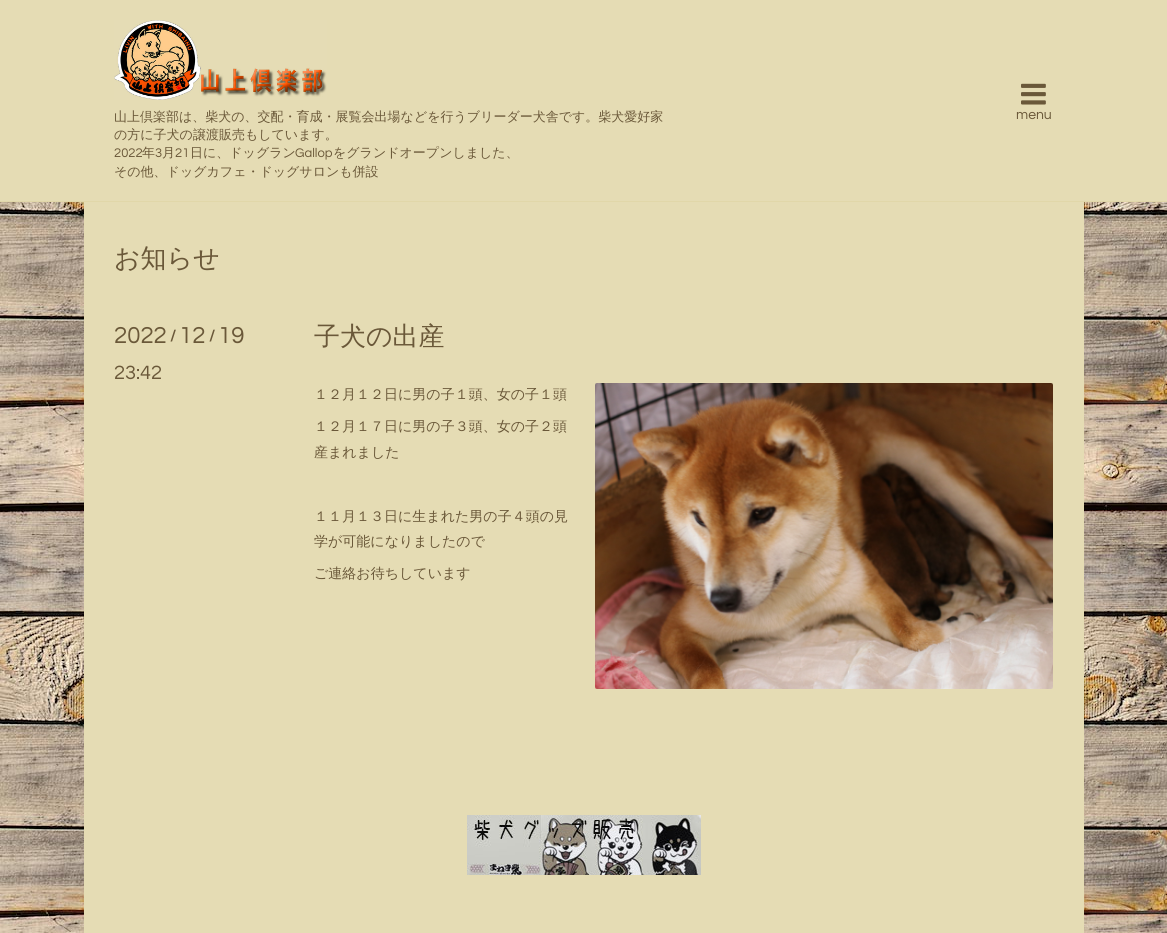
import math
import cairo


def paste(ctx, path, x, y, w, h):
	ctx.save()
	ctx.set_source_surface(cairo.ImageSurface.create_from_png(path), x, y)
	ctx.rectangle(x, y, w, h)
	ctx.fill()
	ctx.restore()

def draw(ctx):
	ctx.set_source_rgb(1, 1, 1)
	ctx.paint()
	paste(ctx, 'media/1.png', 0, 202, 1167, 731)
	ctx.set_source_rgb(0.898, 0.863, 0.706)
	ctx.rectangle(0, 0, 1167, 201)
	ctx.fill()
	ctx.set_source_rgb(0.882, 0.843, 0.663)
	ctx.rectangle(0, 201, 1167, 1)
	ctx.fill()
	paste(ctx, 'media/2.png', 114, 20, 213, 80)
	ctx.select_font_face('WenQuanYi Zen Hei Medium')
	ctx.set_font_size(13)
	ctx.set_source_rgb(0.416, 0.345, 0.224)
	ctx.move_to(114, 121)
	ctx.show_text('山上倶楽部は、柴犬の、交配・育成・展覧会出場などを行うブリーダー犬舎です。柴犬愛好家')
	ctx.move_to(114, 139)
	ctx.show_text('の方に子犬の譲渡販売もしています。')
	ctx.select_font_face('Questrial')
	ctx.move_to(114, 157)
	ctx.show_text('2022')
	ctx.select_font_face('WenQuanYi Zen Hei Medium')
	ctx.move_to(142, 157)
	ctx.show_text('年')
	ctx.select_font_face('Questrial')
	ctx.move_to(155, 157)
	ctx.show_text('3')
	ctx.select_font_face('WenQuanYi Zen Hei Medium')
	ctx.move_to(162, 157)
	ctx.show_text('月')
	ctx.select_font_face('Questrial')
	ctx.move_to(175, 157)
	ctx.show_text('21')
	ctx.select_font_face('WenQuanYi Zen Hei Medium')
	ctx.move_to(190, 157)
	ctx.show_text('日に、ドッグラン')
	ctx.select_font_face('Questrial')
	ctx.move_to(295, 157)
	ctx.show_text('Gallop')
	ctx.select_font_face('WenQuanYi Zen Hei Medium')
	ctx.move_to(333, 157)
	ctx.show_text('をグランドオープンしました、')
	ctx.move_to(114, 176)
	ctx.show_text('その他、ドッグカフェ・ドッグサロンも併設')
	paste(ctx, 'media/3.png', 1021, 83, 25, 22)
	ctx.select_font_face('Questrial')
	ctx.set_font_size(14)
	ctx.move_to(1016, 119)
	ctx.show_text('menu')
	ctx.set_source_rgb(0.898, 0.863, 0.706)
	ctx.rectangle(84, 202, 1000, 731)
	ctx.fill()
	paste(ctx, 'media/4.png', 467, 815, 234, 60)
	ctx.select_font_face('WenQuanYi Zen Hei Medium')
	ctx.set_font_size(26)
	ctx.set_source_rgb(0.416, 0.345, 0.224)
	ctx.move_to(114, 267)
	ctx.show_text('お知らせ')
	ctx.select_font_face('Questrial')
	ctx.set_font_size(24)
	ctx.move_to(114, 343)
	ctx.show_text('2022')
	ctx.select_font_face('Questrial', cairo.FONT_SLANT_NORMAL, cairo.FONT_WEIGHT_BOLD)
	ctx.set_font_size(16)
	ctx.move_to(170, 341)
	ctx.show_text('/')
	ctx.select_font_face('Questrial')
	ctx.set_font_size(24)
	ctx.move_to(179, 343)
	ctx.show_text('12')
	ctx.select_font_face('Questrial', cairo.FONT_SLANT_NORMAL, cairo.FONT_WEIGHT_BOLD)
	ctx.set_font_size(16)
	ctx.move_to(209, 341)
	ctx.show_text('/')
	ctx.select_font_face('Questrial')
	ctx.set_font_size(24)
	ctx.move_to(218, 343)
	ctx.show_text('19')
	ctx.set_font_size(20)
	ctx.move_to(114, 379)
	ctx.show_text('23:42')
	ctx.select_font_face('WenQuanYi Zen Hei Medium')
	ctx.set_font_size(26)
	ctx.move_to(314, 345)
	ctx.show_text('子犬の出産')
	ctx.set_font_size(14)
	for x, y, s in [
		(314, 399, '１２月１２日に男の子１頭、女の子１頭'),
		(314, 431, '１２月１７日に男の子３頭、女の子２頭'),
		(314, 457, '産まれました'),
		(314, 521, '１１月１３日に生まれた男の子４頭の見'),
		(314, 546, '学が可能になりましたので'),
		(314, 578, 'ご連絡お待ちしています'),
	]:
		ctx.move_to(x, y)
		ctx.show_text(s)
	paste(ctx, 'media/5.png', 595, 383, 458, 306)


surface = cairo.ImageSurface(cairo.FORMAT_RGB24, 1167, 933)
ctx = cairo.Context(surface)
options = cairo.FontOptions()
options.set_hint_metrics(cairo.HINT_METRICS_OFF)
options.set_hint_style(cairo.HINT_STYLE_NONE)
ctx.set_font_options(options)
ctx.set_miter_limit(4)
draw(ctx)
surface.write_to_png('image.png')
